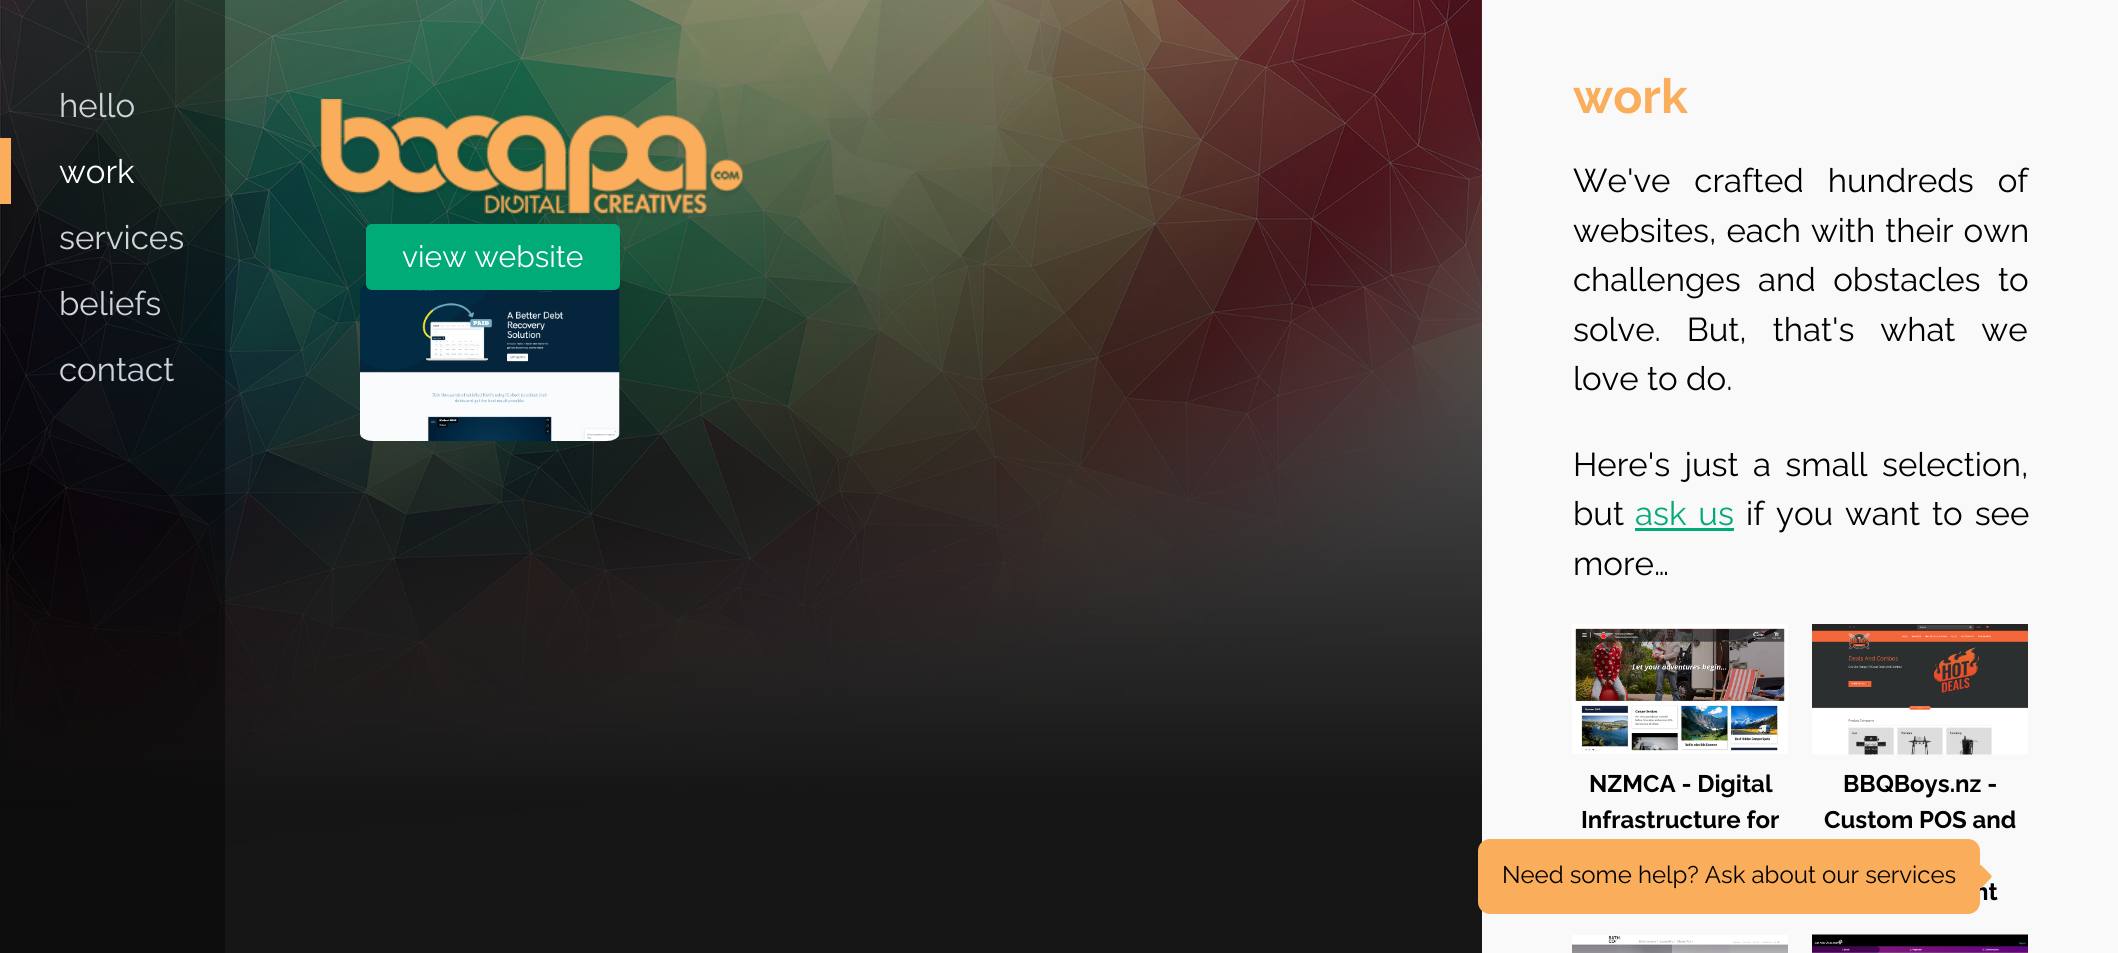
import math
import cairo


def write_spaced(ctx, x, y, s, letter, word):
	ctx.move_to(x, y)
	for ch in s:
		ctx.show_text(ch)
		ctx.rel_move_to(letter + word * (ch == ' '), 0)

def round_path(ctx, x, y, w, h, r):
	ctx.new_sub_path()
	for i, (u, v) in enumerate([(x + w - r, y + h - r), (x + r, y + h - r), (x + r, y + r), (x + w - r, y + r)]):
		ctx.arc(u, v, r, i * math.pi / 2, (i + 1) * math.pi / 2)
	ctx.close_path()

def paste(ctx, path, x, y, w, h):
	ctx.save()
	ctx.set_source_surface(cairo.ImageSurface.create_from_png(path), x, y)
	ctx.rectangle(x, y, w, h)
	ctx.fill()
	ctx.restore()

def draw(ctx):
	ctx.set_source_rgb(1, 1, 1)
	ctx.paint()
	paste(ctx, 'media/1.png', 0, 0, 1482, 953)
	ctx.set_source_rgba(0, 0, 0, 0.4)
	ctx.rectangle(0, 0, 225, 953)
	ctx.fill()
	ctx.select_font_face('Raleway')
	ctx.set_font_size(33)
	ctx.set_source_rgb(0.808, 0.831, 0.855)
	ctx.move_to(59, 117)
	ctx.show_text('hello')
	ctx.set_source_rgb(0.98, 0.678, 0.353)
	ctx.rectangle(0, 138, 11, 66)
	ctx.fill()
	ctx.set_source_rgb(1, 1, 1)
	ctx.move_to(59, 183)
	ctx.show_text('work')
	ctx.set_source_rgb(0.808, 0.831, 0.855)
	for x, y, s in [
		(59, 249, 'services'),
		(59, 315, 'beliefs'),
		(59, 381, 'contact'),
	]:
		ctx.move_to(x, y)
		ctx.show_text(s)
	ctx.set_source_rgb(0.973, 0.976, 0.98)
	ctx.rectangle(1482, 0, 636, 953)
	ctx.fill()
	paste(ctx, 'media/2.png', 320, 99, 423, 119)
	paste(ctx, 'media/3.png', 360, 284, 260, 157)
	ctx.set_source_rgb(0, 0.671, 0.471)
	round_path(ctx, 366, 224, 254, 66, 6)
	ctx.fill()
	ctx.set_font_size(30)
	ctx.set_source_rgb(1, 1, 1)
	ctx.move_to(402, 267)
	ctx.show_text('view website')
	ctx.select_font_face('Raleway', cairo.FONT_SLANT_NORMAL, cairo.FONT_WEIGHT_BOLD)
	ctx.set_font_size(48)
	ctx.set_source_rgb(0.98, 0.678, 0.353)
	ctx.move_to(1573, 113)
	ctx.show_text('work')
	ctx.select_font_face('Raleway')
	ctx.set_font_size(33)
	ctx.set_source_rgb(0, 0, 0)
	write_spaced(ctx, 1573, 192, 'We\'ve crafted hundreds of', 0, 15.5)
	write_spaced(ctx, 1573, 242, 'websites, each with their own', 0, 1.5)
	write_spaced(ctx, 1573, 291, 'challenges and obstacles to', 0, 9)
	write_spaced(ctx, 1573, 341, 'solve. But, that\'s what we', 0, 17.5)
	ctx.move_to(1573, 390)
	ctx.show_text('love to do.')
	write_spaced(ctx, 1573, 476, 'Here\'s just a small selection,', 0, 6)
	ctx.move_to(1573, 525)
	ctx.show_text('but')
	ctx.set_source_rgb(0, 0.671, 0.471)
	write_spaced(ctx, 1635, 525, 'ask us', 0, 3.5)
	ctx.rectangle(1635, 528, 99, 3)
	ctx.fill()
	ctx.set_source_rgb(0, 0, 0)
	write_spaced(ctx, 1746, 525, 'if you want to see', 0, 3.5)
	ctx.move_to(1573, 575)
	ctx.show_text('more…')
	paste(ctx, 'media/4.png', 1572, 624, 216, 130)
	ctx.select_font_face('Raleway', cairo.FONT_SLANT_NORMAL, cairo.FONT_WEIGHT_BOLD)
	ctx.set_font_size(24)
	ctx.move_to(1589, 792)
	ctx.show_text('NZMCA - Digital')
	ctx.move_to(1581, 828)
	ctx.show_text('Infrastructure for')
	paste(ctx, 'media/5.png', 1812, 624, 216, 131)
	for x, y, s in [
		(1843, 792, 'BBQBoys.nz -'),
		(1824, 828, 'Custom POS and'),
		(1974, 900, 'nt'),
	]:
		ctx.move_to(x, y)
		ctx.show_text(s)
	paste(ctx, 'media/6.png', 1572, 935, 216, 18)
	paste(ctx, 'media/7.png', 1812, 934, 216, 19)
	ctx.set_source_rgb(0.98, 0.678, 0.353)
	round_path(ctx, 1478, 839, 502, 75, 12)
	ctx.fill()
	ctx.select_font_face('Raleway')
	ctx.set_source_rgb(0, 0, 0)
	ctx.move_to(1502, 883)
	ctx.show_text('Need some help? Ask about our services')
	ctx.save()
	ctx.rectangle(1980, 864, 18, 24)
	ctx.clip()
	ctx.set_source_rgb(0.98, 0.678, 0.353)
	ctx.new_path()
	ctx.move_to(1982, 866)
	ctx.line_to(1990.5, 874.5)
	ctx.curve_to(1992, 875.5, 1992, 877.5, 1990.5, 878.5)
	ctx.line_to(1978, 891.5)
	ctx.curve_to(1976.5, 892.5, 1975, 892.5, 1973.5, 891.5)
	ctx.line_to(1965, 883)
	ctx.curve_to(1964, 881.5, 1964, 879.5, 1965, 878.5)
	ctx.line_to(1978, 866)
	ctx.curve_to(1979, 864.5, 1981, 864.5, 1982, 866)
	ctx.close_path()
	ctx.fill()
	ctx.restore()


surface = cairo.ImageSurface(cairo.FORMAT_RGB24, 2118, 953)
ctx = cairo.Context(surface)
options = cairo.FontOptions()
options.set_hint_metrics(cairo.HINT_METRICS_OFF)
options.set_hint_style(cairo.HINT_STYLE_NONE)
ctx.set_font_options(options)
ctx.set_miter_limit(4)
draw(ctx)
surface.write_to_png('image.png')
